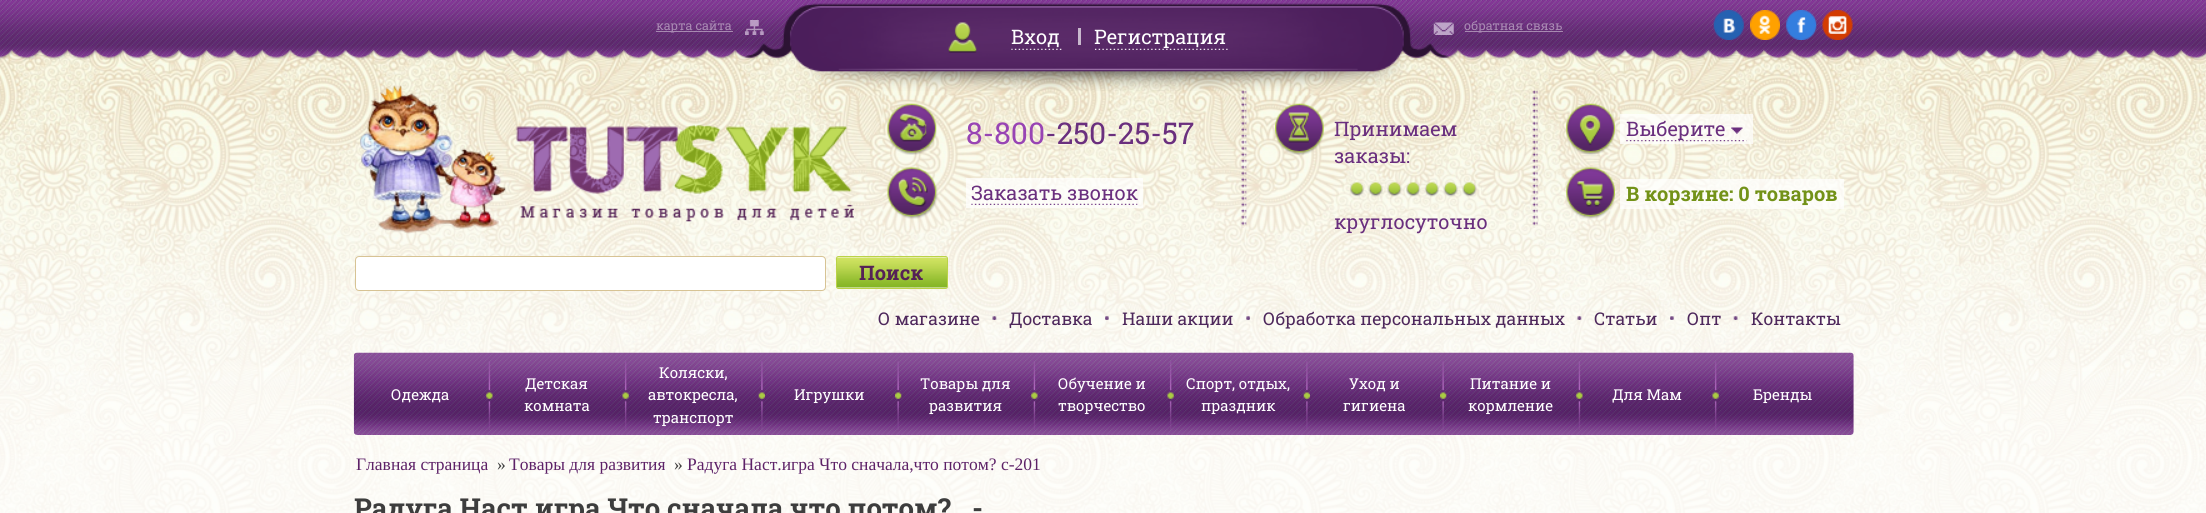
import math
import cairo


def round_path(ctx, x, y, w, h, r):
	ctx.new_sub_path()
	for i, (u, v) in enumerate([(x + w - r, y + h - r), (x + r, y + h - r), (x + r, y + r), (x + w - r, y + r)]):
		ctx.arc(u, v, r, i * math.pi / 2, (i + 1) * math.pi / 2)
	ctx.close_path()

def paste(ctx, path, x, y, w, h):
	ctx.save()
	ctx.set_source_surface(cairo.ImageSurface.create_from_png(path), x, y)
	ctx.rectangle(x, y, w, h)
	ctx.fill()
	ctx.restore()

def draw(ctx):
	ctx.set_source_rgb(1, 1, 1)
	ctx.paint()
	paste(ctx, 'media/1.png', 0, 49, 2206, 464)
	paste(ctx, 'media/2.png', 0, 0, 2206, 91)
	paste(ctx, 'media/3.png', 745, 20, 19, 15)
	ctx.set_source_rgba(1, 1, 1, 0.43)
	ctx.rectangle(656, 31, 77, 1)
	ctx.fill()
	ctx.select_font_face('Roboto Slab')
	ctx.set_font_size(12.5)
	ctx.set_source_rgb(0.667, 0.541, 0.706)
	ctx.move_to(656, 30)
	ctx.show_text('карта сайта')
	paste(ctx, 'media/4.png', 1433, 22, 21, 13)
	ctx.set_source_rgba(1, 1, 1, 0.43)
	ctx.rectangle(1465, 31, 98, 1)
	ctx.fill()
	ctx.set_source_rgb(0.667, 0.541, 0.706)
	ctx.move_to(1464, 30)
	ctx.show_text('обратная связь')
	paste(ctx, 'media/5.png', 1713, 10, 31, 30)
	paste(ctx, 'media/6.png', 1750, 10, 30, 30)
	paste(ctx, 'media/7.png', 1786, 10, 31, 30)
	paste(ctx, 'media/8.png', 1822, 10, 31, 30)
	paste(ctx, 'media/9.png', 1011, 48, 51, 2)
	paste(ctx, 'media/10.png', 948, 22, 29, 31)
	ctx.set_font_size(20)
	ctx.set_source_rgb(1, 1, 1)
	ctx.move_to(1011, 44)
	ctx.show_text('Вход')
	ctx.set_source_rgb(0.784, 0.722, 0.804)
	ctx.rectangle(1078, 28, 3, 17)
	ctx.fill()
	paste(ctx, 'media/11.png', 1095, 48, 133, 2)
	ctx.set_source_rgb(1, 1, 1)
	ctx.move_to(1094, 44)
	ctx.show_text('Регистрация')
	paste(ctx, 'media/12.png', 360, 85, 494, 149)
	paste(ctx, 'media/13.png', 887, 103, 51, 116)
	ctx.set_font_size(30)
	ctx.set_source_rgb(0.596, 0.267, 0.706)
	ctx.move_to(966, 144)
	ctx.show_text('8-800')
	ctx.set_source_rgb(0.416, 0.184, 0.494)
	ctx.move_to(1045, 144)
	ctx.show_text('-250-25-57')
	ctx.set_source_rgba(1, 1, 1, 0.7)
	ctx.rectangle(966, 178, 177, 30)
	ctx.fill()
	paste(ctx, 'media/14.png', 971, 203, 167, 2)
	ctx.set_font_size(20)
	ctx.set_source_rgb(0.416, 0.184, 0.494)
	ctx.move_to(971, 200)
	ctx.show_text('Заказать звонок')
	paste(ctx, 'media/15.png', 1241, 90, 83, 138)
	ctx.move_to(1334, 136)
	ctx.show_text('Принимаем')
	ctx.move_to(1334, 163)
	ctx.show_text('заказы:')
	paste(ctx, 'media/16.png', 1350, 182, 132, 15)
	ctx.move_to(1334, 229)
	ctx.show_text('круглосуточно')
	paste(ctx, 'media/17.png', 1532, 90, 83, 138)
	ctx.set_source_rgba(1, 1, 1, 0.7)
	ctx.rectangle(1620, 114, 133, 30)
	ctx.fill()
	paste(ctx, 'media/18.png', 1626, 140, 121, 2)
	ctx.set_source_rgb(0.416, 0.184, 0.494)
	ctx.move_to(1626, 136)
	ctx.show_text('Выберите')
	paste(ctx, 'media/19.png', 1731, 127, 12, 7)
	ctx.set_source_rgba(1, 1, 1, 0.7)
	ctx.rectangle(1620, 179, 224, 30)
	ctx.fill()
	ctx.select_font_face('Roboto Slab', cairo.FONT_SLANT_NORMAL, cairo.FONT_WEIGHT_BOLD)
	ctx.set_source_rgb(0.451, 0.573, 0.094)
	ctx.move_to(1626, 201)
	ctx.show_text('В корзине: 0 товаров')
	ctx.set_source_rgb(1, 1, 1)
	round_path(ctx, 355.5, 256.5, 470, 34, 3.5)
	ctx.fill_preserve()
	ctx.set_source_rgb(0.843, 0.765, 0.58)
	ctx.set_line_width(1)
	ctx.stroke()
	paste(ctx, 'media/20.png', 836, 257, 112, 31)
	round_path(ctx, 836.5, 256.5, 111, 32, 2)
	ctx.set_source_rgb(0.729, 0.824, 0.282)
	ctx.stroke()
	ctx.set_source_rgb(0.333, 0.133, 0.337)
	ctx.move_to(859, 280)
	ctx.show_text('Поиск')
	ctx.select_font_face('Roboto Slab')
	ctx.set_font_size(17.5)
	ctx.set_source_rgb(0.306, 0.157, 0.361)
	ctx.move_to(878, 325)
	ctx.show_text('О магазине')
	paste(ctx, 'media/21.png', 992, 316, 5, 4)
	ctx.move_to(1009, 325)
	ctx.show_text('Доставка')
	paste(ctx, 'media/22.png', 1105, 316, 4, 4)
	ctx.move_to(1122, 325)
	ctx.show_text('Наши акции')
	paste(ctx, 'media/23.png', 1246, 316, 4, 4)
	ctx.move_to(1263, 325)
	ctx.show_text('Обработка персональных данных')
	paste(ctx, 'media/24.png', 1577, 316, 5, 4)
	ctx.move_to(1594, 325)
	ctx.show_text('Статьи')
	paste(ctx, 'media/25.png', 1670, 316, 4, 4)
	ctx.move_to(1687, 325)
	ctx.show_text('Опт')
	paste(ctx, 'media/26.png', 1733, 316, 5, 4)
	ctx.move_to(1751, 325)
	ctx.show_text('Контакты')
	paste(ctx, 'media/27.png', 353, 352, 1501, 83)
	ctx.set_font_size(15)
	ctx.set_source_rgb(1, 1, 1)
	ctx.move_to(391, 400)
	ctx.show_text('Одежда')
	paste(ctx, 'media/28.png', 486, 361, 7, 69)
	ctx.move_to(525, 389)
	ctx.show_text('Детская')
	ctx.move_to(524, 411)
	ctx.show_text('комната')
	paste(ctx, 'media/29.png', 622, 361, 7, 69)
	for x, y, s in [
		(659, 378, 'Коляски,'),
		(648, 400, 'автокресла,'),
		(653, 423, 'транспорт'),
	]:
		ctx.move_to(x, y)
		ctx.show_text(s)
	paste(ctx, 'media/30.png', 758, 361, 7, 68)
	ctx.move_to(794, 400)
	ctx.show_text('Игрушки')
	paste(ctx, 'media/31.png', 895, 361, 7, 69)
	ctx.move_to(920, 389)
	ctx.show_text('Товары для')
	ctx.move_to(929, 411)
	ctx.show_text('развития')
	paste(ctx, 'media/32.png', 1031, 361, 7, 69)
	ctx.move_to(1058, 389)
	ctx.show_text('Обучение и')
	ctx.move_to(1058, 411)
	ctx.show_text('творчество')
	paste(ctx, 'media/33.png', 1167, 361, 7, 69)
	ctx.move_to(1186, 389)
	ctx.show_text('Спорт, отдых,')
	ctx.move_to(1201, 411)
	ctx.show_text('праздник')
	paste(ctx, 'media/34.png', 1303, 361, 7, 68)
	ctx.move_to(1349, 389)
	ctx.show_text('Уход и')
	ctx.move_to(1343, 411)
	ctx.show_text('гигиена')
	paste(ctx, 'media/35.png', 1440, 361, 7, 69)
	ctx.move_to(1470, 389)
	ctx.show_text('Питание и')
	ctx.move_to(1468, 411)
	ctx.show_text('кормление')
	paste(ctx, 'media/36.png', 1576, 361, 7, 69)
	ctx.move_to(1612, 400)
	ctx.show_text('Для Мам')
	paste(ctx, 'media/37.png', 1712, 361, 7, 69)
	ctx.move_to(1753, 400)
	ctx.show_text('Бренды')
	ctx.select_font_face('Liberation Serif')
	ctx.set_font_size(17.5)
	ctx.set_source_rgb(0.365, 0.129, 0.404)
	ctx.move_to(356, 470)
	ctx.show_text('Главная страница')
	ctx.set_source_rgb(0.239, 0.239, 0.239)
	ctx.move_to(497, 470)
	ctx.show_text('»')
	ctx.set_source_rgb(0.365, 0.129, 0.404)
	ctx.move_to(509, 470)
	ctx.show_text('Товары для развития')
	ctx.set_source_rgb(0.239, 0.239, 0.239)
	ctx.move_to(674, 470)
	ctx.show_text('»')
	ctx.set_source_rgb(0.365, 0.129, 0.404)
	ctx.move_to(687, 470)
	ctx.show_text('Радуга Наст.игра Что сначала,что потом? с-201')
	ctx.select_font_face('Roboto Slab', cairo.FONT_SLANT_NORMAL, cairo.FONT_WEIGHT_BOLD)
	ctx.set_font_size(27.5)
	ctx.set_source_rgb(0.239, 0.239, 0.239)
	ctx.move_to(354, 518)
	ctx.show_text('Радуга Наст.игра Что сначала,что потом?')
	ctx.move_to(972, 518)
	ctx.show_text('-')


surface = cairo.ImageSurface(cairo.FORMAT_RGB24, 2206, 513)
ctx = cairo.Context(surface)
options = cairo.FontOptions()
options.set_hint_metrics(cairo.HINT_METRICS_OFF)
options.set_hint_style(cairo.HINT_STYLE_NONE)
ctx.set_font_options(options)
ctx.set_miter_limit(4)
draw(ctx)
surface.write_to_png('image.png')
